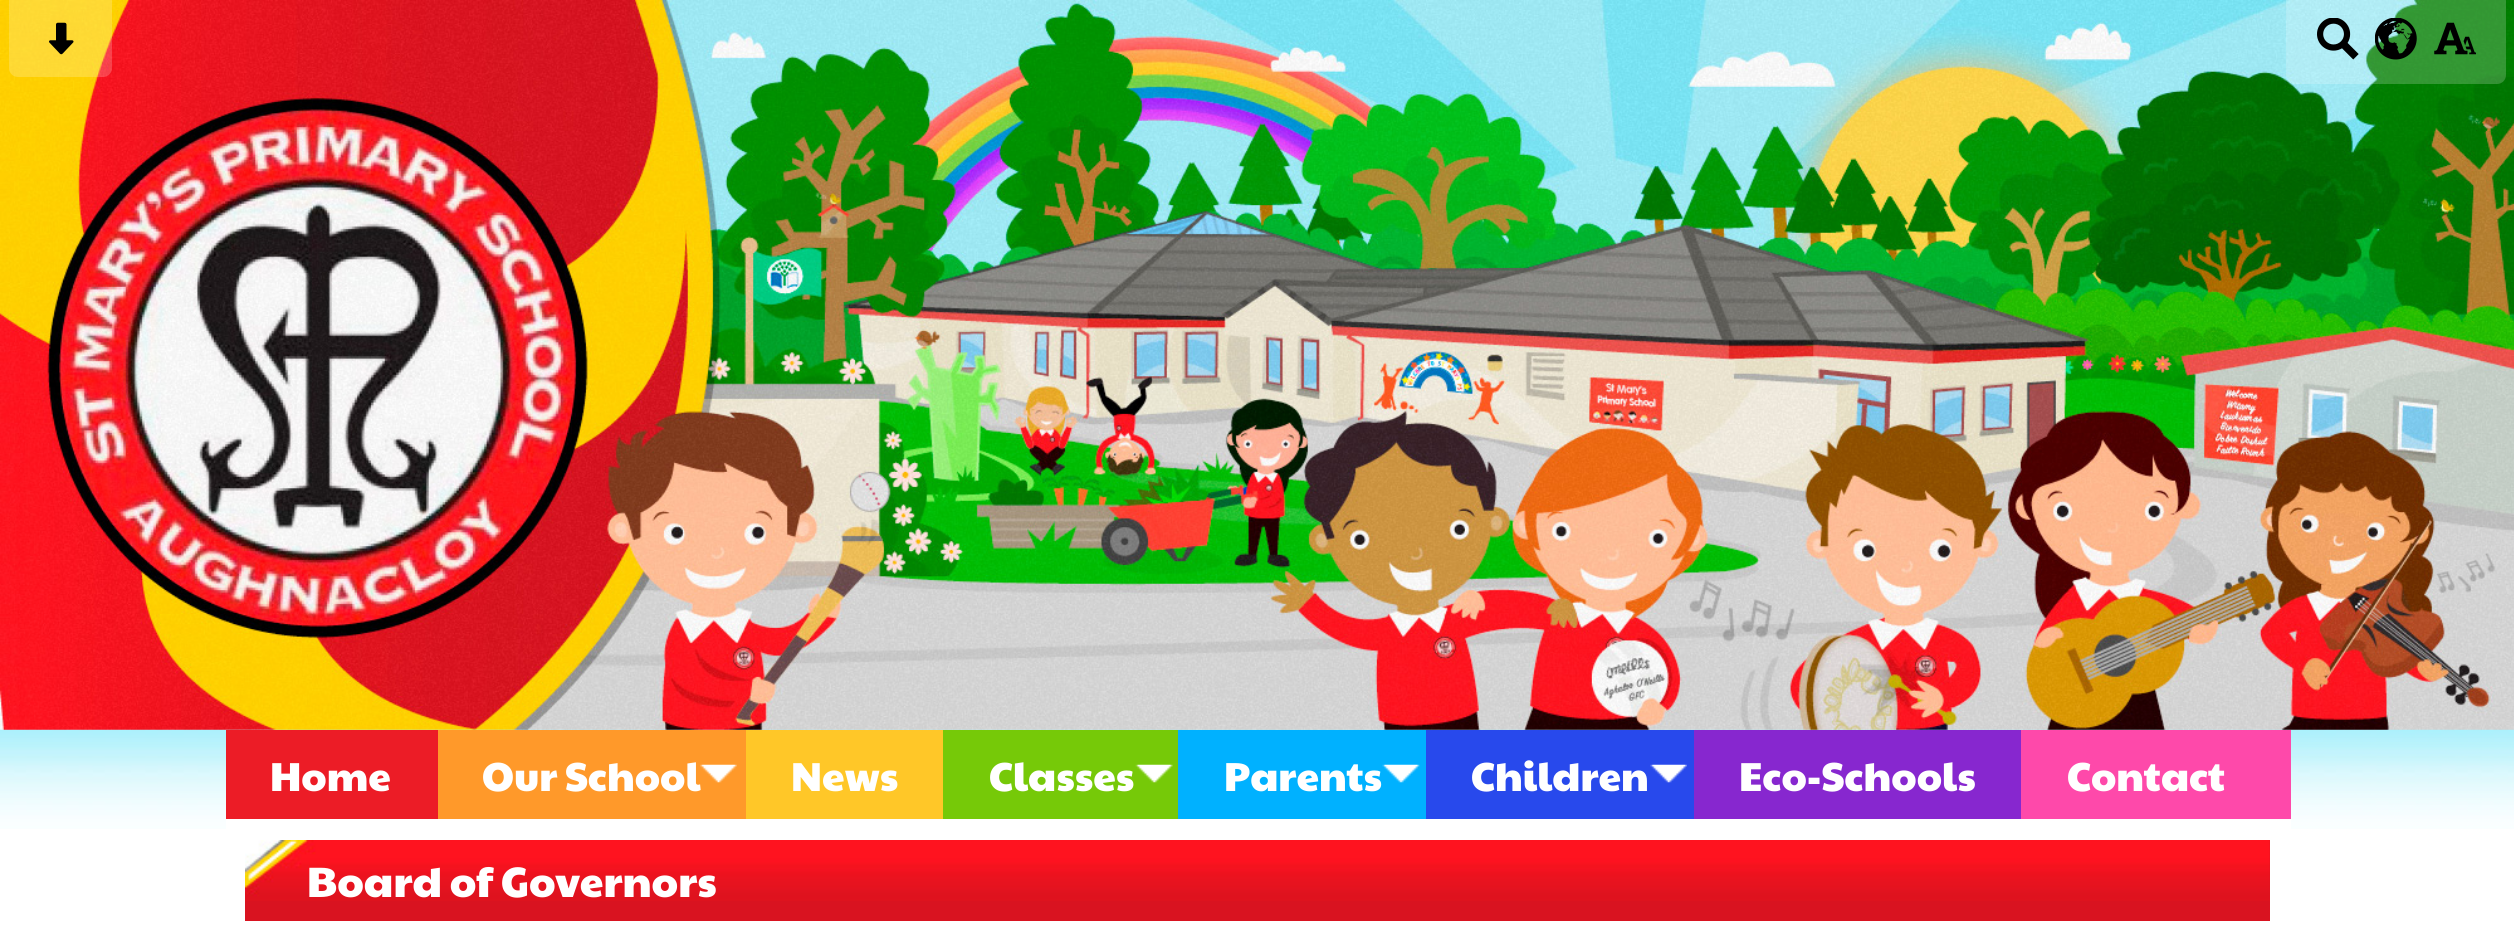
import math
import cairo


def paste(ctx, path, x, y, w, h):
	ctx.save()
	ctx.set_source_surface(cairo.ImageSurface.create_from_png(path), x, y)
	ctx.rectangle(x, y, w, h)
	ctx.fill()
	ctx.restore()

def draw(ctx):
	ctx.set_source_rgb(1, 1, 1)
	ctx.paint()
	paste(ctx, 'media/1.png', 0, 729, 2514, 100)
	paste(ctx, 'media/2.png', 0, 0, 2514, 730)
	ctx.set_source_rgba(1, 1, 1, 0.2)
	ctx.new_path()
	ctx.move_to(9, 0)
	ctx.line_to(112, 0)
	ctx.line_to(112, 68)
	ctx.curve_to(112, 73, 108, 77, 103, 77)
	ctx.line_to(18, 77)
	ctx.curve_to(13, 77, 9, 73, 9, 68)
	ctx.close_path()
	ctx.fill()
	paste(ctx, 'media/3.png', 49, 22, 25, 33)
	ctx.new_path()
	ctx.move_to(2286, 0)
	ctx.line_to(2506, 0)
	ctx.line_to(2506, 75)
	ctx.curve_to(2506, 80, 2502, 84, 2497, 84)
	ctx.line_to(2295, 84)
	ctx.curve_to(2290, 84, 2286, 80, 2286, 75)
	ctx.close_path()
	ctx.fill()
	paste(ctx, 'media/4.png', 2317, 18, 42, 42)
	paste(ctx, 'media/5.png', 2375, 18, 42, 42)
	paste(ctx, 'media/6.png', 2434, 22, 42, 33)
	ctx.set_source_rgb(0.996, 0.286, 0.667)
	ctx.rectangle(2021, 730, 270, 89)
	ctx.fill()
	ctx.set_source_rgb(0.922, 0.11, 0.149)
	ctx.rectangle(226, 730, 212, 89)
	ctx.fill()
	ctx.select_font_face('Paytone One')
	ctx.set_font_size(40.5)
	ctx.set_source_rgb(1, 1, 1)
	ctx.move_to(270, 791)
	ctx.show_text('Home')
	ctx.set_source_rgb(1, 0.6, 0.165)
	ctx.rectangle(438, 730, 308, 89)
	ctx.fill()
	paste(ctx, 'media/7.png', 700, 764, 37, 19)
	ctx.set_source_rgb(1, 1, 1)
	ctx.move_to(482, 791)
	ctx.show_text('Our School')
	ctx.set_source_rgb(1, 0.78, 0.157)
	ctx.rectangle(746, 730, 197, 89)
	ctx.fill()
	ctx.set_source_rgb(1, 1, 1)
	ctx.move_to(791, 791)
	ctx.show_text('News')
	ctx.set_source_rgb(0.463, 0.788, 0.035)
	ctx.rectangle(943, 730, 235, 89)
	ctx.fill()
	paste(ctx, 'media/8.png', 1135, 764, 38, 19)
	ctx.set_source_rgb(1, 1, 1)
	ctx.move_to(989, 791)
	ctx.show_text('Classes')
	ctx.set_source_rgb(0, 0.694, 1)
	ctx.rectangle(1178, 730, 248, 89)
	ctx.fill()
	paste(ctx, 'media/9.png', 1382, 764, 38, 19)
	ctx.set_source_rgb(1, 1, 1)
	ctx.move_to(1224, 791)
	ctx.show_text('Parents')
	ctx.set_source_rgb(0.157, 0.286, 0.925)
	ctx.rectangle(1426, 730, 268, 89)
	ctx.fill()
	paste(ctx, 'media/10.png', 1650, 764, 37, 19)
	ctx.set_source_rgb(1, 1, 1)
	ctx.move_to(1471, 791)
	ctx.show_text('Children')
	ctx.set_source_rgb(0.529, 0.153, 0.812)
	ctx.rectangle(1694, 730, 327, 89)
	ctx.fill()
	ctx.set_source_rgb(1, 1, 1)
	ctx.move_to(1739, 791)
	ctx.show_text('Eco-Schools')
	ctx.move_to(2067, 791)
	ctx.show_text('Contact')
	ctx.rectangle(226, 819, 2065, 10)
	ctx.fill()
	ctx.set_source_rgb(0.851, 0.075, 0.125)
	ctx.rectangle(245, 840, 2025, 81)
	ctx.fill()
	paste(ctx, 'media/11.png', 245, 840, 2025, 61)
	ctx.set_font_size(42.5)
	ctx.set_source_rgb(1, 1, 1)
	ctx.move_to(307, 897)
	ctx.show_text('Board of Governors')


surface = cairo.ImageSurface(cairo.FORMAT_RGB24, 2514, 952)
ctx = cairo.Context(surface)
options = cairo.FontOptions()
options.set_hint_metrics(cairo.HINT_METRICS_OFF)
options.set_hint_style(cairo.HINT_STYLE_NONE)
ctx.set_font_options(options)
ctx.set_miter_limit(4)
draw(ctx)
surface.write_to_png('image.png')
